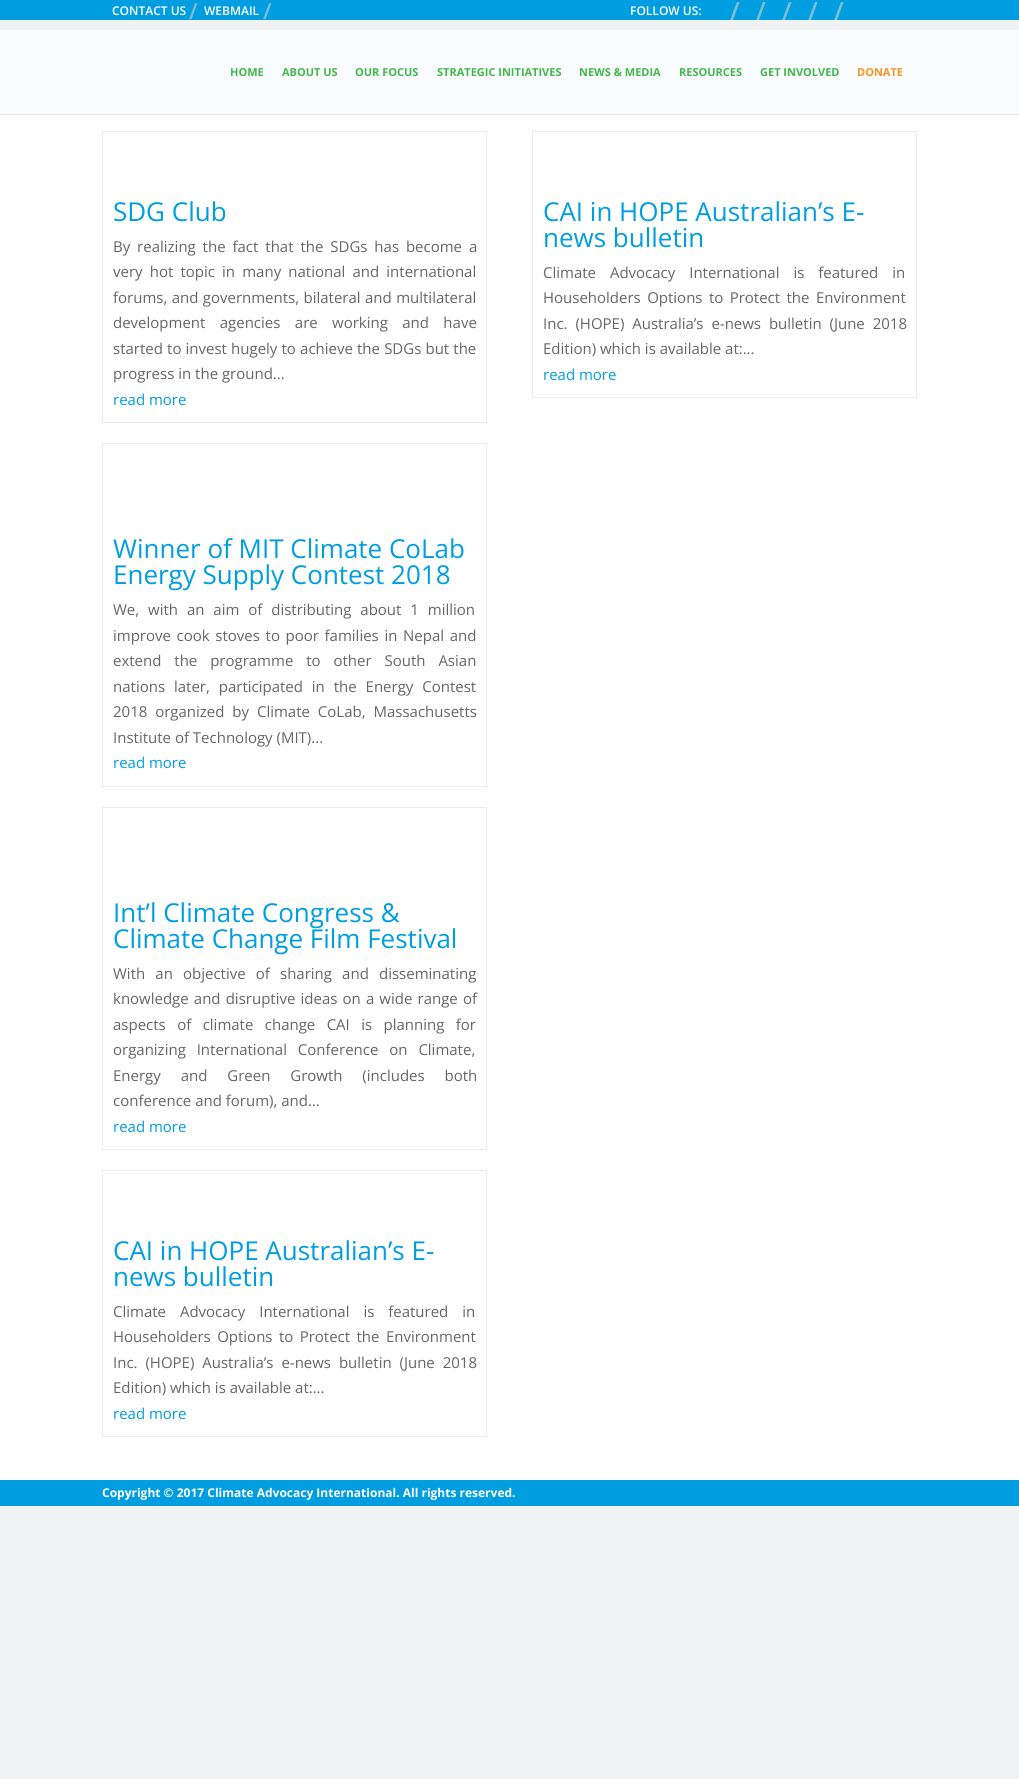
import math
import cairo


def write_spaced(ctx, x, y, s, letter, word):
	ctx.move_to(x, y)
	for ch in s:
		ctx.show_text(ch)
		ctx.rel_move_to(letter + word * (ch == ' '), 0)

def draw(ctx):
	ctx.set_source_rgb(0.941, 0.949, 0.953)
	ctx.paint()
	ctx.set_source_rgb(0, 0.62, 0.882)
	ctx.rectangle(0, 0, 1019, 20)
	ctx.fill()
	ctx.select_font_face('Open Sans SemiBold')
	ctx.set_font_size(12)
	ctx.set_source_rgb(1, 1, 1)
	ctx.move_to(112, 15)
	ctx.show_text('CONTACT US')
	ctx.set_font_size(22)
	ctx.set_source_rgb(0.498, 0.745, 0.831)
	ctx.move_to(189, 19)
	ctx.show_text('/')
	ctx.set_font_size(12)
	ctx.set_source_rgb(1, 1, 1)
	ctx.move_to(204, 15)
	ctx.show_text('WEBMAIL')
	ctx.set_font_size(22)
	ctx.set_source_rgb(0.498, 0.745, 0.831)
	ctx.move_to(263, 19)
	ctx.show_text('/')
	ctx.set_font_size(12)
	ctx.set_source_rgb(1, 1, 1)
	ctx.move_to(630, 15)
	ctx.show_text('FOLLOW US:')
	ctx.set_font_size(25)
	ctx.set_source_rgb(0.498, 0.745, 0.831)
	for x, y, s in [
		(730, 20, '/'),
		(756, 20, '/'),
		(782, 20, '/'),
		(808, 20, '/'),
		(834, 20, '/'),
	]:
		ctx.move_to(x, y)
		ctx.show_text(s)
	ctx.set_source_rgb(0.902, 0.902, 0.902)
	ctx.rectangle(0, 114, 1019, 1)
	ctx.fill()
	ctx.set_source_rgb(0.973, 0.988, 1)
	ctx.rectangle(0, 30, 1019, 84)
	ctx.fill()
	ctx.select_font_face('Open Sans', cairo.FONT_SLANT_NORMAL, cairo.FONT_WEIGHT_BOLD)
	ctx.set_font_size(11)
	ctx.set_source_rgb(0.267, 0.714, 0.29)
	for x, y, s in [
		(230, 76, 'HOME'),
		(282, 76, 'ABOUT US'),
		(355, 76, 'OUR FOCUS'),
		(437, 76, 'STRATEGIC INITIATIVES'),
		(579, 76, 'NEWS & MEDIA'),
		(679, 76, 'RESOURCES'),
		(760, 76, 'GET INVOLVED'),
	]:
		ctx.move_to(x, y)
		ctx.show_text(s)
	ctx.set_source_rgb(0.969, 0.576, 0.114)
	ctx.move_to(857, 76)
	ctx.show_text('DONATE')
	ctx.set_source_rgb(1, 1, 1)
	ctx.rectangle(0, 115, 1019, 1365)
	ctx.fill()
	ctx.rectangle(102.5, 131.5, 384, 291)
	ctx.set_source_rgb(0.918, 0.918, 0.918)
	ctx.set_line_width(1)
	ctx.stroke()
	ctx.select_font_face('Open Sans')
	ctx.set_font_size(26)
	ctx.set_source_rgb(0, 0.62, 0.882)
	ctx.move_to(113, 221)
	ctx.show_text('SDG Club')
	ctx.set_font_size(15)
	ctx.set_source_rgb(0.4, 0.4, 0.4)
	write_spaced(ctx, 113, 252, 'By realizing the fact that the SDGs has become a', 0, 3)
	write_spaced(ctx, 113, 277, 'very hot topic in many national and international', 0, 3.25)
	write_spaced(ctx, 113, 303, 'forums, and governments, bilateral and multilateral', 0, 0.5)
	write_spaced(ctx, 113, 328, 'development agencies are working and have', 0, 10.5)
	write_spaced(ctx, 113, 354, 'started to invest hugely to achieve the SDGs but the', 0, 0.25)
	ctx.move_to(113, 379)
	ctx.show_text('progress in the ground...')
	ctx.set_source_rgb(0, 0.62, 0.882)
	ctx.move_to(113, 405)
	ctx.show_text('read more')
	ctx.rectangle(102.5, 443.5, 384, 343)
	ctx.set_source_rgb(0.918, 0.918, 0.918)
	ctx.stroke()
	ctx.set_font_size(26)
	ctx.set_source_rgb(0, 0.62, 0.882)
	ctx.move_to(113, 558)
	ctx.show_text('Winner of MIT Climate CoLab')
	ctx.move_to(113, 584)
	ctx.show_text('Energy Supply Contest 2018')
	ctx.set_font_size(15)
	ctx.set_source_rgb(0.4, 0.4, 0.4)
	write_spaced(ctx, 113, 615, 'We, with an aim of distributing about 1 million', 0, 5)
	write_spaced(ctx, 113, 641, 'improve cook stoves to poor families in Nepal and', 0, 1.75)
	write_spaced(ctx, 113, 666, 'extend the programme to other South Asian', 0, 9)
	write_spaced(ctx, 113, 692, 'nations later, participated in the Energy Contest', 0, 5)
	write_spaced(ctx, 113, 717, '2018 organized by Climate CoLab, Massachusetts', 0, 4)
	ctx.move_to(113, 743)
	ctx.show_text('Institute of Technology (MIT)...')
	ctx.set_source_rgb(0, 0.62, 0.882)
	ctx.move_to(113, 768)
	ctx.show_text('read more')
	ctx.rectangle(102.5, 807.5, 384, 342)
	ctx.set_source_rgb(0.918, 0.918, 0.918)
	ctx.stroke()
	ctx.set_font_size(26)
	ctx.set_source_rgb(0, 0.62, 0.882)
	ctx.move_to(113, 922)
	ctx.show_text('Int’l Climate Congress &')
	ctx.move_to(113, 948)
	ctx.show_text('Climate Change Film Festival')
	ctx.set_font_size(15)
	ctx.set_source_rgb(0.4, 0.4, 0.4)
	write_spaced(ctx, 113, 979, 'With an objective of sharing and disseminating', 0, 6.25)
	write_spaced(ctx, 113, 1004, 'knowledge and disruptive ideas on a wide range of', 0, 1.25)
	write_spaced(ctx, 113, 1030, 'aspects of climate change CAI is planning for', 0, 7.5)
	write_spaced(ctx, 113, 1055, 'organizing International Conference on Climate,', 0, 7)
	write_spaced(ctx, 113, 1081, 'Energy and Green Growth (includes both', 0, 16)
	ctx.move_to(113, 1106)
	ctx.show_text('conference and forum), and...')
	ctx.set_source_rgb(0, 0.62, 0.882)
	ctx.move_to(113, 1132)
	ctx.show_text('read more')
	ctx.rectangle(102.5, 1170.5, 384, 266)
	ctx.set_source_rgb(0.918, 0.918, 0.918)
	ctx.stroke()
	ctx.set_font_size(26)
	ctx.set_source_rgb(0, 0.62, 0.882)
	ctx.move_to(113, 1260)
	ctx.show_text('CAI in HOPE Australian’s E-')
	ctx.move_to(113, 1286)
	ctx.show_text('news bulletin')
	ctx.set_font_size(15)
	ctx.set_source_rgb(0.4, 0.4, 0.4)
	write_spaced(ctx, 113, 1317, 'Climate Advocacy International is featured in', 0, 10)
	write_spaced(ctx, 113, 1342, 'Householders Options to Protect the Environment', 0, 2.5)
	write_spaced(ctx, 113, 1368, 'Inc. (HOPE) Australia’s e-news bulletin (June 2018', 0, 4)
	ctx.move_to(113, 1393)
	ctx.show_text('Edition) which is available at:...')
	ctx.set_source_rgb(0, 0.62, 0.882)
	ctx.move_to(113, 1419)
	ctx.show_text('read more')
	ctx.rectangle(532.5, 131.5, 384, 266)
	ctx.set_source_rgb(0.918, 0.918, 0.918)
	ctx.stroke()
	ctx.set_font_size(26)
	ctx.set_source_rgb(0, 0.62, 0.882)
	ctx.move_to(543, 221)
	ctx.show_text('CAI in HOPE Australian’s E-')
	ctx.move_to(543, 247)
	ctx.show_text('news bulletin')
	ctx.set_font_size(15)
	ctx.set_source_rgb(0.4, 0.4, 0.4)
	write_spaced(ctx, 543, 278, 'Climate Advocacy International is featured in', 0, 10)
	write_spaced(ctx, 543, 303, 'Householders Options to Protect the Environment', 0, 2.5)
	write_spaced(ctx, 543, 329, 'Inc. (HOPE) Australia’s e-news bulletin (June 2018', 0, 4)
	ctx.move_to(543, 354)
	ctx.show_text('Edition) which is available at:...')
	ctx.set_source_rgb(0, 0.62, 0.882)
	ctx.move_to(543, 380)
	ctx.show_text('read more')
	ctx.rectangle(0, 1480, 1019, 26)
	ctx.fill()
	ctx.select_font_face('Open Sans', cairo.FONT_SLANT_NORMAL, cairo.FONT_WEIGHT_BOLD)
	ctx.set_font_size(12)
	ctx.set_source_rgb(1, 1, 1)
	ctx.move_to(102, 1497)
	ctx.show_text('Copyright © 2017 Climate Advocacy International. All rights reserved.')


surface = cairo.ImageSurface(cairo.FORMAT_RGB24, 1019, 1779)
ctx = cairo.Context(surface)
options = cairo.FontOptions()
options.set_hint_metrics(cairo.HINT_METRICS_OFF)
options.set_hint_style(cairo.HINT_STYLE_NONE)
ctx.set_font_options(options)
ctx.set_miter_limit(4)
draw(ctx)
surface.write_to_png('image.png')
